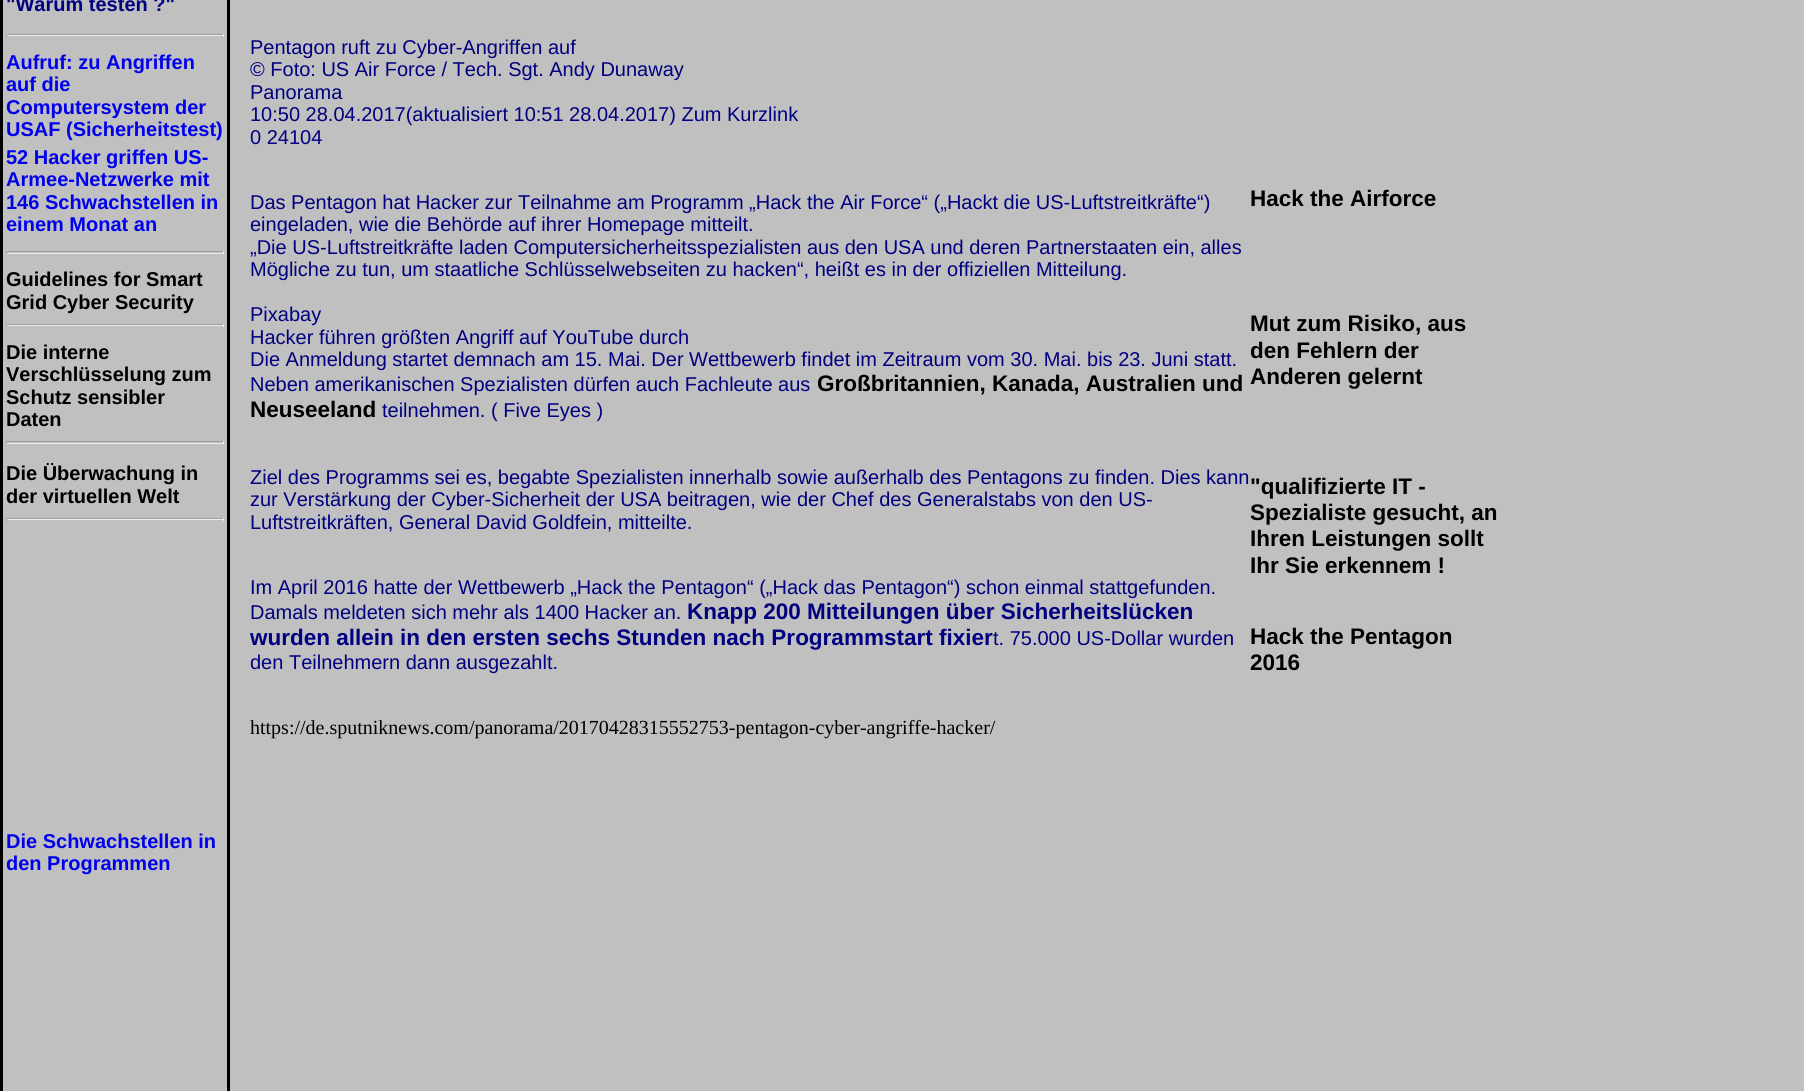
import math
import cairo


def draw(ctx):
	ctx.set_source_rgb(0.753, 0.753, 0.753)
	ctx.paint()
	ctx.rectangle(1.5, -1.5, 227, 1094)
	ctx.set_source_rgb(0, 0, 0)
	ctx.set_line_width(3)
	ctx.stroke()
	ctx.select_font_face('Liberation Sans', cairo.FONT_SLANT_NORMAL, cairo.FONT_WEIGHT_BOLD)
	ctx.set_font_size(20)
	ctx.set_source_rgb(0, 0, 0.502)
	ctx.move_to(6, 11)
	ctx.show_text('"Warum testen ?"')
	ctx.set_source_rgb(0.624, 0.624, 0.624)
	ctx.rectangle(6, 34, 218, 1)
	ctx.fill()
	ctx.set_source_rgb(0.933, 0.933, 0.933)
	ctx.rectangle(223, 34, 1, 3)
	ctx.rectangle(6, 35, 218, 1)
	ctx.fill()
	ctx.set_source_rgb(0.624, 0.624, 0.624)
	ctx.rectangle(6, 34, 1, 3)
	ctx.fill()
	ctx.set_source_rgb(0, 0, 0.933)
	for x, y, s in [
		(6, 69, 'Aufruf: zu Angriffen'),
		(6, 91, 'auf die'),
		(6, 114, 'Computersystem der'),
		(6, 136, 'USAF (Sicherheitstest)'),
		(6, 164, '52 Hacker griffen US-'),
		(6, 186, 'Armee-Netzwerke mit'),
		(6, 209, '146 Schwachstellen in'),
		(6, 231, 'einem Monat an'),
	]:
		ctx.move_to(x, y)
		ctx.show_text(s)
	ctx.set_source_rgb(0.624, 0.624, 0.624)
	ctx.rectangle(6, 251, 218, 1)
	ctx.fill()
	ctx.set_source_rgb(0.933, 0.933, 0.933)
	ctx.rectangle(223, 251, 1, 3)
	ctx.rectangle(6, 253, 218, 1)
	ctx.fill()
	ctx.set_source_rgb(0.624, 0.624, 0.624)
	ctx.rectangle(6, 251, 1, 3)
	ctx.fill()
	ctx.set_source_rgb(0, 0, 0)
	ctx.move_to(6, 286)
	ctx.show_text('Guidelines for Smart')
	ctx.move_to(6, 309)
	ctx.show_text('Grid Cyber Security')
	ctx.set_source_rgb(0.624, 0.624, 0.624)
	ctx.rectangle(6, 324, 218, 1)
	ctx.fill()
	ctx.set_source_rgb(0.933, 0.933, 0.933)
	ctx.rectangle(223, 324, 1, 3)
	ctx.rectangle(6, 325, 218, 1)
	ctx.fill()
	ctx.set_source_rgb(0.624, 0.624, 0.624)
	ctx.rectangle(6, 324, 1, 3)
	ctx.fill()
	ctx.set_source_rgb(0, 0, 0)
	for x, y, s in [
		(6, 359, 'Die interne'),
		(6, 381, 'Verschlüsselung zum'),
		(6, 404, 'Schutz sensibler'),
		(6, 426, 'Daten'),
	]:
		ctx.move_to(x, y)
		ctx.show_text(s)
	ctx.set_source_rgb(0.624, 0.624, 0.624)
	ctx.rectangle(6, 441, 218, 1)
	ctx.fill()
	ctx.set_source_rgb(0.933, 0.933, 0.933)
	ctx.rectangle(223, 441, 1, 3)
	ctx.rectangle(6, 443, 218, 1)
	ctx.fill()
	ctx.set_source_rgb(0.624, 0.624, 0.624)
	ctx.rectangle(6, 441, 1, 3)
	ctx.fill()
	ctx.set_source_rgb(0, 0, 0)
	ctx.move_to(6, 480)
	ctx.show_text('Die Überwachung in')
	ctx.move_to(6, 503)
	ctx.show_text('der virtuellen Welt')
	ctx.set_source_rgb(0.624, 0.624, 0.624)
	ctx.rectangle(6, 518, 218, 1)
	ctx.fill()
	ctx.set_source_rgb(0.933, 0.933, 0.933)
	ctx.rectangle(223, 518, 1, 3)
	ctx.rectangle(6, 519, 218, 1)
	ctx.fill()
	ctx.set_source_rgb(0.624, 0.624, 0.624)
	ctx.rectangle(6, 518, 1, 3)
	ctx.fill()
	ctx.set_source_rgb(0, 0, 0.933)
	ctx.move_to(6, 848)
	ctx.show_text('Die Schwachstellen in')
	ctx.move_to(6, 870)
	ctx.show_text('den Programmen')
	ctx.select_font_face('Liberation Sans')
	ctx.set_source_rgb(0, 0, 0.502)
	for x, y, s in [
		(250, 54, 'Pentagon ruft zu Cyber-Angriffen auf'),
		(250, 76, '© Foto: US Air Force / Tech. Sgt. Andy Dunaway'),
		(250, 99, 'Panorama'),
		(250, 121, '10:50 28.04.2017(aktualisiert 10:51 28.04.2017) Zum Kurzlink'),
		(250, 144, '0 24104'),
		(250, 209, 'Das Pentagon hat Hacker zur Teilnahme am Programm „Hack the Air Force“ („Hackt die US-Luftstreitkräfte“)'),
		(250, 231, 'eingeladen, wie die Behörde auf ihrer Homepage mitteilt.'),
		(250, 254, '„Die US-Luftstreitkräfte laden Computersicherheitsspezialisten aus den USA und deren Partnerstaaten ein, alles'),
		(250, 276, 'Mögliche zu tun, um staatliche Schlüsselwebseiten zu hacken“, heißt es in der offiziellen Mitteilung.'),
		(250, 321, 'Pixabay'),
		(250, 344, 'Hacker führen größten Angriff auf YouTube durch'),
		(250, 366, 'Die Anmeldung startet demnach am 15. Mai. Der Wettbewerb findet im Zeitraum vom 30. Mai. bis 23. Juni statt.'),
		(250, 391, 'Neben amerikanischen Spezialisten dürfen auch Fachleute aus'),
	]:
		ctx.move_to(x, y)
		ctx.show_text(s)
	ctx.select_font_face('Liberation Sans', cairo.FONT_SLANT_NORMAL, cairo.FONT_WEIGHT_BOLD)
	ctx.set_font_size(22.5)
	ctx.set_source_rgb(0, 0, 0)
	ctx.move_to(817, 391)
	ctx.show_text('Großbritannien, Kanada, Australien und')
	ctx.move_to(250, 417)
	ctx.show_text('Neuseeland')
	ctx.select_font_face('Liberation Sans')
	ctx.set_font_size(20)
	ctx.set_source_rgb(0, 0, 0.502)
	ctx.move_to(382, 417)
	ctx.show_text('teilnehmen. ( Five Eyes )')
	ctx.select_font_face('Liberation Sans', cairo.FONT_SLANT_NORMAL, cairo.FONT_WEIGHT_BOLD)
	ctx.set_font_size(22.5)
	ctx.set_source_rgb(0, 0, 0)
	for x, y, s in [
		(1250, 206, 'Hack the Airforce'),
		(1250, 331, 'Mut zum Risiko, aus'),
		(1250, 358, 'den Fehlern der'),
		(1250, 384, 'Anderen gelernt'),
	]:
		ctx.move_to(x, y)
		ctx.show_text(s)
	ctx.select_font_face('Liberation Sans')
	ctx.set_font_size(20)
	ctx.set_source_rgb(0, 0, 0.502)
	for x, y, s in [
		(250, 484, 'Ziel des Programms sei es, begabte Spezialisten innerhalb sowie außerhalb des Pentagons zu finden. Dies kann'),
		(250, 506, 'zur Verstärkung der Cyber-Sicherheit der USA beitragen, wie der Chef des Generalstabs von den US-'),
		(250, 529, 'Luftstreitkräften, General David Goldfein, mitteilte.'),
	]:
		ctx.move_to(x, y)
		ctx.show_text(s)
	ctx.select_font_face('Liberation Sans', cairo.FONT_SLANT_NORMAL, cairo.FONT_WEIGHT_BOLD)
	ctx.set_font_size(22.5)
	ctx.set_source_rgb(0, 0, 0)
	for x, y, s in [
		(1250, 494, '"qualifizierte IT -'),
		(1250, 520, 'Spezialiste gesucht, an'),
		(1250, 546, 'Ihren Leistungen sollt'),
		(1250, 573, 'Ihr Sie erkennem !'),
	]:
		ctx.move_to(x, y)
		ctx.show_text(s)
	ctx.select_font_face('Liberation Sans')
	ctx.set_font_size(20)
	ctx.set_source_rgb(0, 0, 0.502)
	ctx.move_to(250, 594)
	ctx.show_text('Im April 2016 hatte der Wettbewerb „Hack the Pentagon“ („Hack das Pentagon“) schon einmal stattgefunden.')
	ctx.move_to(250, 619)
	ctx.show_text('Damals meldeten sich mehr als 1400 Hacker an.')
	ctx.select_font_face('Liberation Sans', cairo.FONT_SLANT_NORMAL, cairo.FONT_WEIGHT_BOLD)
	ctx.set_font_size(22.5)
	ctx.move_to(687, 619)
	ctx.show_text('Knapp 200 Mitteilungen über Sicherheitslücken')
	ctx.move_to(250, 645)
	ctx.show_text('wurden allein in den ersten sechs Stunden nach Programmstart fixier')
	ctx.select_font_face('Liberation Sans')
	ctx.set_font_size(20)
	ctx.move_to(993, 645)
	ctx.show_text('t. 75.000 US-Dollar wurden')
	ctx.move_to(250, 669)
	ctx.show_text('den Teilnehmern dann ausgezahlt.')
	ctx.select_font_face('Liberation Sans', cairo.FONT_SLANT_NORMAL, cairo.FONT_WEIGHT_BOLD)
	ctx.set_font_size(22.5)
	ctx.set_source_rgb(0, 0, 0)
	ctx.move_to(1250, 644)
	ctx.show_text('Hack the Pentagon')
	ctx.move_to(1250, 670)
	ctx.show_text('2016')
	ctx.select_font_face('Liberation Serif')
	ctx.set_font_size(20)
	ctx.move_to(250, 734)
	ctx.show_text('https://de.sputniknews.com/panorama/20170428315552753-pentagon-cyber-angriffe-hacker/')


surface = cairo.ImageSurface(cairo.FORMAT_RGB24, 1804, 1091)
ctx = cairo.Context(surface)
options = cairo.FontOptions()
options.set_hint_metrics(cairo.HINT_METRICS_OFF)
options.set_hint_style(cairo.HINT_STYLE_NONE)
ctx.set_font_options(options)
ctx.set_miter_limit(4)
draw(ctx)
surface.write_to_png('image.png')
